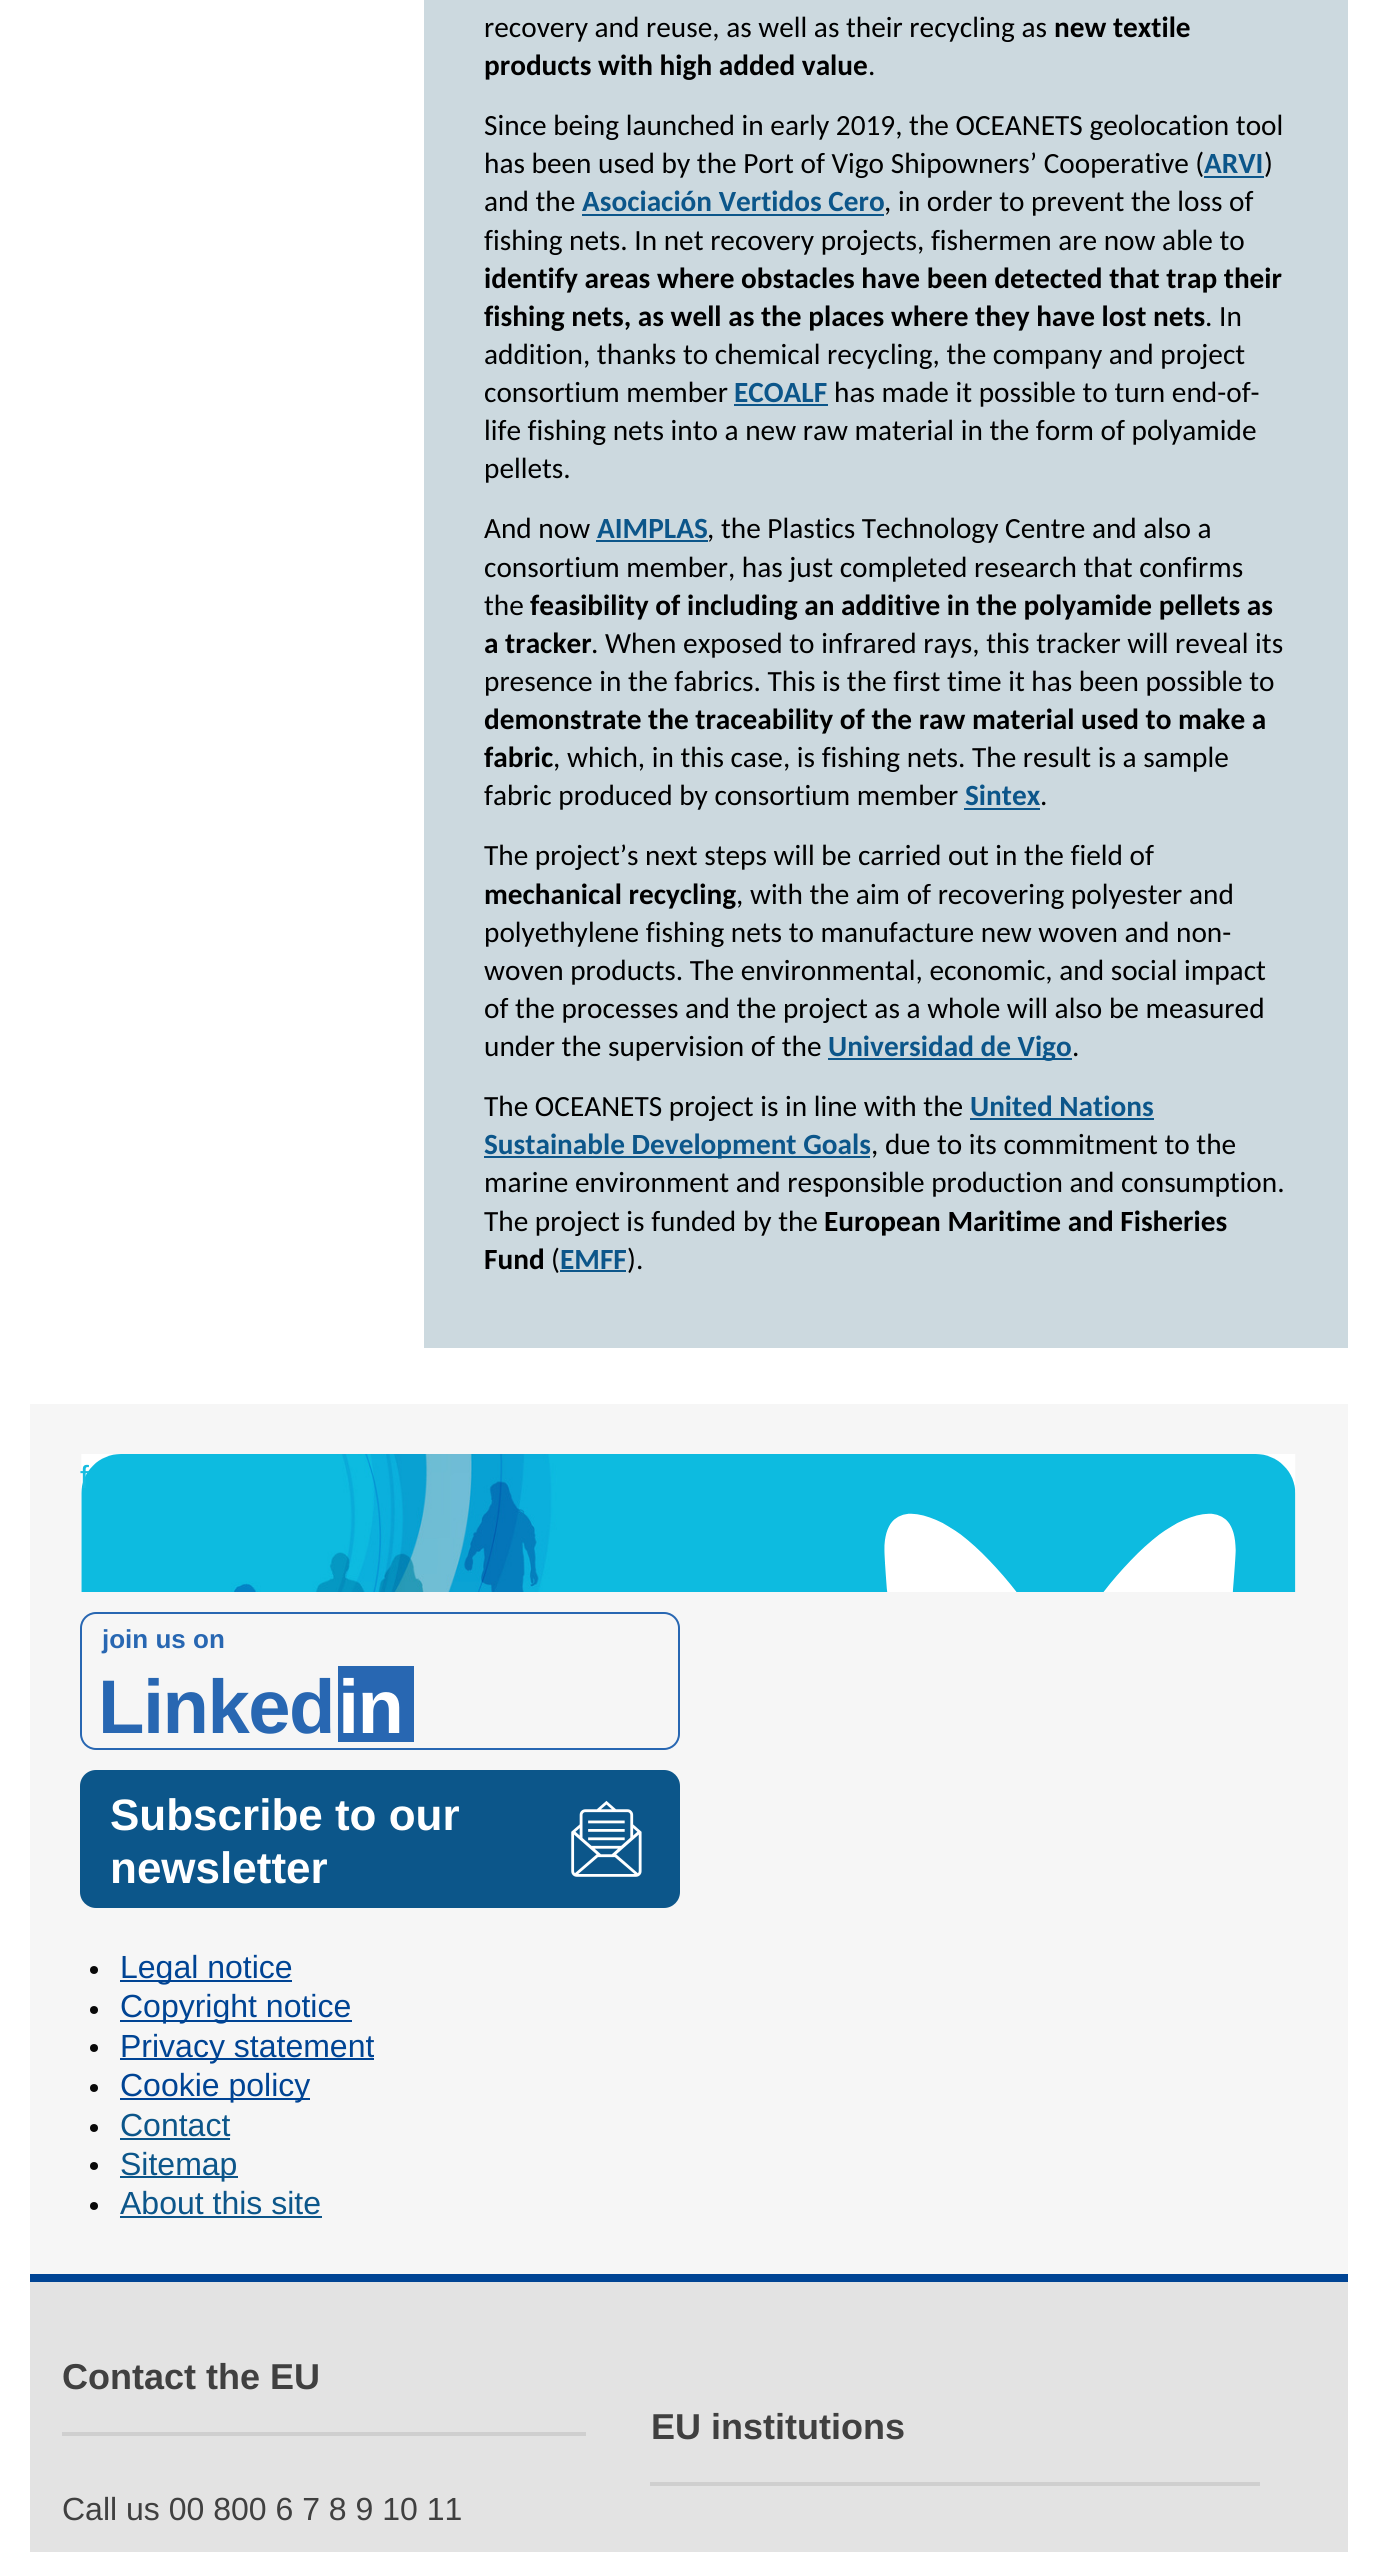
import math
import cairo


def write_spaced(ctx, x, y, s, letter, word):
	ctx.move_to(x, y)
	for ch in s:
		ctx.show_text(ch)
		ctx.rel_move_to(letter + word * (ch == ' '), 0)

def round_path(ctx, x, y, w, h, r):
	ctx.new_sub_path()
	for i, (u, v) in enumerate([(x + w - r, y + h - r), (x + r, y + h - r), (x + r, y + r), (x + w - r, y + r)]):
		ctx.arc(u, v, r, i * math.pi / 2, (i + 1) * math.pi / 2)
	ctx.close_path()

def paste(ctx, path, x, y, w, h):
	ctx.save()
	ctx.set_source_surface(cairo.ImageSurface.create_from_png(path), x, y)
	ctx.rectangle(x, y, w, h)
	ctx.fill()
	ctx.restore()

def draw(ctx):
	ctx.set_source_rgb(1, 1, 1)
	ctx.paint()
	ctx.set_source_rgb(0.8, 0.851, 0.875)
	ctx.rectangle(424, 0, 924, 1348)
	ctx.fill()
	ctx.select_font_face('Carlito')
	ctx.set_font_size(29.3)
	ctx.set_source_rgb(0, 0, 0)
	ctx.move_to(484, 37)
	ctx.show_text('recovery and reuse, as well as their recycling as')
	ctx.select_font_face('Carlito', cairo.FONT_SLANT_NORMAL, cairo.FONT_WEIGHT_BOLD)
	ctx.move_to(1054, 37)
	ctx.show_text('new textile')
	ctx.move_to(484, 75)
	ctx.show_text('products with high added value')
	ctx.select_font_face('Carlito')
	for x, y, s in [
		(868, 75, '.'),
		(484, 135, 'Since being launched in early 2019, the OCEANETS geolocation tool'),
		(484, 173, 'has been used by the Port of Vigo Shipowners’ Cooperative ('),
	]:
		ctx.move_to(x, y)
		ctx.show_text(s)
	ctx.set_source_rgb(0.047, 0.337, 0.541)
	ctx.rectangle(1204, 176, 60, 2)
	ctx.fill()
	ctx.select_font_face('Carlito', cairo.FONT_SLANT_NORMAL, cairo.FONT_WEIGHT_BOLD)
	ctx.move_to(1204, 173)
	ctx.show_text('ARVI')
	ctx.select_font_face('Carlito')
	ctx.set_source_rgb(0, 0, 0)
	ctx.move_to(1264, 173)
	ctx.show_text(')')
	ctx.move_to(484, 211)
	ctx.show_text('and the')
	ctx.select_font_face('Carlito', cairo.FONT_SLANT_NORMAL, cairo.FONT_WEIGHT_BOLD)
	ctx.set_source_rgb(0.047, 0.337, 0.541)
	ctx.move_to(582, 211)
	ctx.show_text('Asociación Vertidos Cero')
	ctx.select_font_face('Carlito')
	ctx.set_source_rgb(0, 0, 0)
	ctx.move_to(884, 211)
	ctx.show_text(', in order to prevent the loss of')
	ctx.set_source_rgb(0.047, 0.337, 0.541)
	ctx.rectangle(582, 214, 302, 2)
	ctx.fill()
	ctx.set_source_rgb(0, 0, 0)
	ctx.move_to(484, 250)
	ctx.show_text('fishing nets. In net recovery projects, fishermen are now able to')
	ctx.select_font_face('Carlito', cairo.FONT_SLANT_NORMAL, cairo.FONT_WEIGHT_BOLD)
	ctx.move_to(484, 288)
	ctx.show_text('identify areas where obstacles have been detected that trap their')
	ctx.move_to(484, 326)
	ctx.show_text('fishing nets, as well as the places where they have lost nets')
	ctx.select_font_face('Carlito')
	for x, y, s in [
		(1205, 326, '. In'),
		(484, 364, 'addition, thanks to chemical recycling, the company and project'),
		(484, 402, 'consortium member'),
	]:
		ctx.move_to(x, y)
		ctx.show_text(s)
	ctx.select_font_face('Carlito', cairo.FONT_SLANT_NORMAL, cairo.FONT_WEIGHT_BOLD)
	ctx.set_source_rgb(0.047, 0.337, 0.541)
	ctx.move_to(734, 402)
	ctx.show_text('ECOALF')
	ctx.rectangle(734, 404, 94, 2)
	ctx.fill()
	ctx.select_font_face('Carlito')
	ctx.set_source_rgb(0, 0, 0)
	for x, y, s in [
		(834, 402, 'has made it possible to turn end-of-'),
		(484, 440, 'life fishing nets into a new raw material in the form of polyamide'),
		(484, 478, 'pellets.'),
		(484, 538, 'And now'),
	]:
		ctx.move_to(x, y)
		ctx.show_text(s)
	ctx.select_font_face('Carlito', cairo.FONT_SLANT_NORMAL, cairo.FONT_WEIGHT_BOLD)
	ctx.set_source_rgb(0.047, 0.337, 0.541)
	ctx.move_to(597, 538)
	ctx.show_text('AIMPLAS')
	ctx.select_font_face('Carlito')
	ctx.set_source_rgb(0, 0, 0)
	ctx.move_to(707, 538)
	ctx.show_text(', the Plastics Technology Centre and also a')
	ctx.set_source_rgb(0.047, 0.337, 0.541)
	ctx.rectangle(596, 540, 112, 2)
	ctx.fill()
	ctx.set_source_rgb(0, 0, 0)
	ctx.move_to(484, 577)
	ctx.show_text('consortium member, has just completed research that confirms')
	ctx.move_to(484, 615)
	ctx.show_text('the')
	ctx.select_font_face('Carlito', cairo.FONT_SLANT_NORMAL, cairo.FONT_WEIGHT_BOLD)
	ctx.move_to(530, 615)
	ctx.show_text('feasibility of including an additive in the polyamide pellets as')
	ctx.move_to(484, 653)
	ctx.show_text('a tracker')
	ctx.select_font_face('Carlito')
	ctx.move_to(591, 653)
	ctx.show_text('. When exposed to infrared rays, this tracker will reveal its')
	ctx.move_to(484, 691)
	ctx.show_text('presence in the fabrics. This is the first time it has been possible to')
	ctx.select_font_face('Carlito', cairo.FONT_SLANT_NORMAL, cairo.FONT_WEIGHT_BOLD)
	for x, y, s in [
		(484, 729, 'demonstrate the traceability of the raw material'),
		(1081, 729, 'used to make a'),
		(484, 767, 'fabric'),
	]:
		ctx.move_to(x, y)
		ctx.show_text(s)
	ctx.select_font_face('Carlito')
	ctx.move_to(553, 767)
	ctx.show_text(', which, in this case, is fishing nets. The result is a sample')
	ctx.move_to(484, 805)
	ctx.show_text('fabric produced by consortium member')
	ctx.select_font_face('Carlito', cairo.FONT_SLANT_NORMAL, cairo.FONT_WEIGHT_BOLD)
	ctx.set_source_rgb(0.047, 0.337, 0.541)
	ctx.move_to(965, 805)
	ctx.show_text('Sintex')
	ctx.select_font_face('Carlito')
	ctx.set_source_rgb(0, 0, 0)
	ctx.move_to(1040, 805)
	ctx.show_text('.')
	ctx.set_source_rgb(0.047, 0.337, 0.541)
	ctx.rectangle(964, 808, 76, 2)
	ctx.fill()
	ctx.set_source_rgb(0, 0, 0)
	ctx.move_to(484, 865)
	ctx.show_text('The project’s next steps will be carried out in the field of')
	ctx.select_font_face('Carlito', cairo.FONT_SLANT_NORMAL, cairo.FONT_WEIGHT_BOLD)
	ctx.move_to(484, 904)
	ctx.show_text('mechanical recycling')
	ctx.select_font_face('Carlito')
	for x, y, s in [
		(736, 904, ', with the aim of recovering polyester and'),
		(484, 942, 'polyethylene fishing nets to manufacture new woven and non-'),
		(484, 980, 'woven products. The environmental, economic, and social impact'),
		(484, 1018, 'of the processes and the project as a whole will also be measured'),
		(484, 1056, 'under the supervision of the'),
	]:
		ctx.move_to(x, y)
		ctx.show_text(s)
	ctx.set_source_rgb(0.047, 0.337, 0.541)
	ctx.rectangle(828, 1058, 244, 2)
	ctx.fill()
	ctx.select_font_face('Carlito', cairo.FONT_SLANT_NORMAL, cairo.FONT_WEIGHT_BOLD)
	ctx.move_to(828, 1056)
	ctx.show_text('Universidad de Vigo')
	ctx.select_font_face('Carlito')
	ctx.set_source_rgb(0, 0, 0)
	ctx.move_to(1072, 1056)
	ctx.show_text('.')
	ctx.move_to(484, 1116)
	ctx.show_text('The OCEANETS project is in line with the')
	ctx.select_font_face('Carlito', cairo.FONT_SLANT_NORMAL, cairo.FONT_WEIGHT_BOLD)
	ctx.set_source_rgb(0.047, 0.337, 0.541)
	ctx.move_to(970, 1116)
	ctx.show_text('United Nations')
	ctx.rectangle(970, 1118, 184, 2)
	ctx.fill()
	ctx.rectangle(484, 1156, 386, 2)
	ctx.fill()
	ctx.move_to(484, 1154)
	ctx.show_text('Sustainable Development Goals')
	ctx.select_font_face('Carlito')
	ctx.set_source_rgb(0, 0, 0)
	for x, y, s in [
		(871, 1154, ', due to its commitment to the'),
		(484, 1192, 'marine environment and responsible production and consumption.'),
		(484, 1231, 'The project is funded by the'),
	]:
		ctx.move_to(x, y)
		ctx.show_text(s)
	ctx.select_font_face('Carlito', cairo.FONT_SLANT_NORMAL, cairo.FONT_WEIGHT_BOLD)
	ctx.move_to(824, 1231)
	ctx.show_text('European Maritime and Fisheries')
	ctx.move_to(484, 1269)
	ctx.show_text('Fund')
	ctx.select_font_face('Carlito')
	ctx.move_to(551, 1269)
	ctx.show_text('(')
	ctx.set_source_rgb(0.047, 0.337, 0.541)
	ctx.rectangle(560, 1270, 66, 2)
	ctx.fill()
	ctx.select_font_face('Carlito', cairo.FONT_SLANT_NORMAL, cairo.FONT_WEIGHT_BOLD)
	ctx.move_to(560, 1269)
	ctx.show_text('EMFF')
	ctx.select_font_face('Carlito')
	ctx.set_source_rgb(0, 0, 0)
	ctx.move_to(627, 1269)
	ctx.show_text(').')
	ctx.set_source_rgb(0.961, 0.961, 0.961)
	ctx.rectangle(30, 1404, 1318, 870)
	ctx.fill()
	paste(ctx, 'media/1.png', 81, 1454, 1215, 138)
	ctx.select_font_face('Liberation Sans')
	ctx.set_font_size(32)
	ctx.set_source_rgb(0.086, 0.741, 0.882)
	ctx.move_to(80, 1488)
	ctx.show_text('f')
	round_path(ctx, 81, 1613, 598, 136, 15)
	ctx.set_source_rgb(0.157, 0.404, 0.698)
	ctx.stroke()
	ctx.select_font_face('Liberation Sans', cairo.FONT_SLANT_NORMAL, cairo.FONT_WEIGHT_BOLD)
	ctx.set_font_size(26)
	ctx.move_to(102, 1648)
	ctx.show_text('join us on')
	ctx.set_font_size(76)
	write_spaced(ctx, 98, 1733, 'Linked', -1.5, 0)
	ctx.rectangle(338, 1666, 76, 76)
	ctx.fill()
	ctx.set_source_rgb(1, 1, 1)
	write_spaced(ctx, 338, 1733, 'in', -1.5, 0)
	ctx.set_source_rgb(0.047, 0.337, 0.541)
	round_path(ctx, 80, 1770, 600, 138, 16)
	ctx.fill()
	ctx.set_font_size(44)
	ctx.set_source_rgb(1, 1, 1)
	ctx.move_to(110, 1830)
	ctx.show_text('Subscribe to our')
	ctx.move_to(110, 1883)
	ctx.show_text('newsletter')
	paste(ctx, 'media/2.png', 571, 1800, 71, 77)
	ctx.set_source_rgb(0.039, 0.039, 0.039)
	ctx.arc(94, 1970, 4, 0, 2 * math.pi)
	ctx.fill()
	ctx.set_source_rgb(0, 0.267, 0.58)
	ctx.rectangle(120, 1980, 172, 2)
	ctx.fill()
	ctx.select_font_face('Liberation Sans')
	ctx.set_font_size(32)
	ctx.move_to(120, 1978)
	ctx.show_text('Legal notice')
	ctx.set_source_rgb(0.039, 0.039, 0.039)
	ctx.new_path()
	ctx.arc(94, 2010, 4, 0, 2 * math.pi)
	ctx.fill()
	ctx.set_source_rgb(0, 0.267, 0.58)
	ctx.rectangle(120, 2020, 232, 2)
	ctx.fill()
	ctx.move_to(120, 2017)
	ctx.show_text('Copyright notice')
	ctx.set_source_rgb(0.039, 0.039, 0.039)
	ctx.new_path()
	ctx.arc(94, 2048, 4, 0, 2 * math.pi)
	ctx.fill()
	ctx.set_source_rgb(0, 0.267, 0.58)
	ctx.rectangle(120, 2058, 254, 2)
	ctx.fill()
	ctx.move_to(120, 2057)
	ctx.show_text('Privacy statement')
	ctx.set_source_rgb(0.039, 0.039, 0.039)
	ctx.new_path()
	ctx.arc(94, 2088, 4, 0, 2 * math.pi)
	ctx.fill()
	ctx.set_source_rgb(0, 0.267, 0.58)
	ctx.rectangle(120, 2098, 190, 2)
	ctx.fill()
	ctx.move_to(120, 2096)
	ctx.show_text('Cookie policy')
	ctx.set_source_rgb(0.039, 0.039, 0.039)
	ctx.new_path()
	ctx.arc(94, 2128, 4, 0, 2 * math.pi)
	ctx.fill()
	ctx.set_source_rgb(0.047, 0.337, 0.541)
	ctx.move_to(120, 2136)
	ctx.show_text('Contact')
	ctx.rectangle(120, 2138, 110, 2)
	ctx.fill()
	ctx.set_source_rgb(0.039, 0.039, 0.039)
	ctx.arc(94, 2166, 4, 0, 2 * math.pi)
	ctx.fill()
	ctx.set_source_rgb(0.047, 0.337, 0.541)
	ctx.rectangle(120, 2176, 118, 2)
	ctx.fill()
	ctx.move_to(120, 2175)
	ctx.show_text('Sitemap')
	ctx.set_source_rgb(0.039, 0.039, 0.039)
	ctx.new_path()
	ctx.arc(94, 2206, 4, 0, 2 * math.pi)
	ctx.fill()
	ctx.set_source_rgb(0.047, 0.337, 0.541)
	ctx.move_to(120, 2214)
	ctx.show_text('About this site')
	ctx.rectangle(120, 2216, 202, 2)
	ctx.fill()
	ctx.set_source_rgb(0, 0.267, 0.58)
	ctx.rectangle(30, 2274, 1318, 8)
	ctx.fill()
	ctx.set_source_rgb(0.89, 0.89, 0.89)
	ctx.rectangle(30, 2282, 1318, 270)
	ctx.fill()
	ctx.set_source_rgb(0.812, 0.812, 0.812)
	ctx.rectangle(62, 2432, 524, 4)
	ctx.fill()
	ctx.select_font_face('Liberation Sans', cairo.FONT_SLANT_NORMAL, cairo.FONT_WEIGHT_BOLD)
	ctx.set_font_size(36)
	ctx.set_source_rgb(0.251, 0.251, 0.251)
	ctx.move_to(62, 2389)
	ctx.show_text('Contact the EU')
	ctx.select_font_face('Liberation Sans')
	ctx.set_font_size(32)
	ctx.move_to(62, 2520)
	ctx.show_text('Call us 00 800 6 7 8 9 10 11')
	ctx.set_source_rgb(0.812, 0.812, 0.812)
	ctx.rectangle(650, 2482, 610, 4)
	ctx.fill()
	ctx.select_font_face('Liberation Sans', cairo.FONT_SLANT_NORMAL, cairo.FONT_WEIGHT_BOLD)
	ctx.set_font_size(36)
	ctx.set_source_rgb(0.251, 0.251, 0.251)
	ctx.move_to(651, 2439)
	ctx.show_text('EU institutions')


surface = cairo.ImageSurface(cairo.FORMAT_RGB24, 1378, 2552)
ctx = cairo.Context(surface)
options = cairo.FontOptions()
options.set_hint_metrics(cairo.HINT_METRICS_OFF)
options.set_hint_style(cairo.HINT_STYLE_NONE)
ctx.set_font_options(options)
ctx.set_miter_limit(4)
draw(ctx)
surface.write_to_png('image.png')
